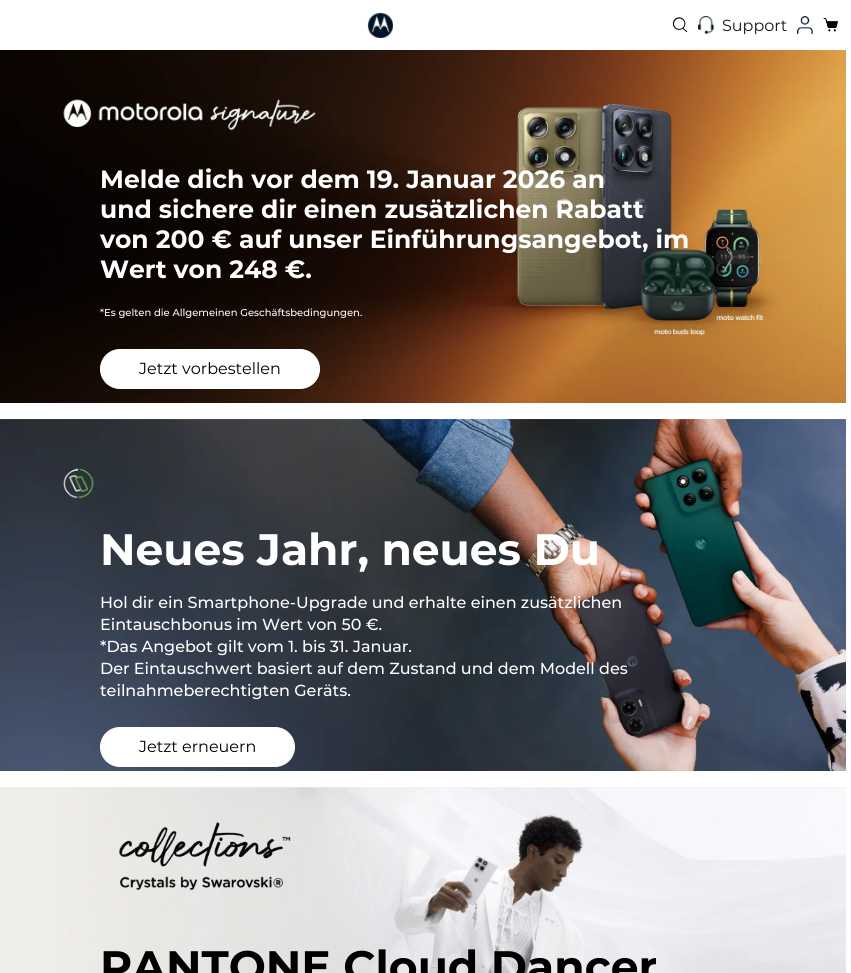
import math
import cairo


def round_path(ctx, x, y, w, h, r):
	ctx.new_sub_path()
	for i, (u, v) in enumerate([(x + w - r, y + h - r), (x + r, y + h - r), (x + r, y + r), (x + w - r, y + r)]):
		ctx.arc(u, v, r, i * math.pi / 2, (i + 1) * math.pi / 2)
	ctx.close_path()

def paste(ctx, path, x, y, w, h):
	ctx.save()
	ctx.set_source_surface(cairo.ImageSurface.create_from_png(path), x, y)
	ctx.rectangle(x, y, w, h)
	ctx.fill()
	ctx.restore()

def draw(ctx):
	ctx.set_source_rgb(1, 1, 1)
	ctx.paint()
	paste(ctx, 'media/1.png', 367, 12, 26, 26)
	paste(ctx, 'media/2.png', 672, 17, 16, 16)
	paste(ctx, 'media/3.png', 698, 16, 16, 18)
	ctx.select_font_face('Montserrat')
	ctx.set_font_size(16)
	ctx.set_source_rgb(0.09, 0.09, 0.09)
	ctx.move_to(722, 31)
	ctx.show_text('Support')
	paste(ctx, 'media/4.png', 797, 16, 16, 18)
	paste(ctx, 'media/5.png', 823, 18, 15, 14)
	paste(ctx, 'media/6.png', 0, 50, 846, 353)
	ctx.select_font_face('Montserrat', cairo.FONT_SLANT_NORMAL, cairo.FONT_WEIGHT_BOLD)
	ctx.set_font_size(25)
	ctx.set_source_rgb(1, 1, 1)
	for x, y, s in [
		(100, 188, 'Melde dich vor dem 19. Januar 2026 an'),
		(100, 218, 'und sichere dir einen zusätzlichen Rabatt'),
		(100, 248, 'von 200 € auf unser Einführungsangebot, im'),
		(100, 278, 'Wert von 248 €.'),
	]:
		ctx.move_to(x, y)
		ctx.show_text(s)
	ctx.select_font_face('Montserrat Medium')
	ctx.set_font_size(10)
	ctx.move_to(100, 316)
	ctx.show_text('*Es gelten die Allgemeinen Geschäftsbedingungen.')
	round_path(ctx, 100.5, 349.5, 219, 39, 19.5)
	ctx.fill_preserve()
	ctx.set_line_width(1)
	ctx.stroke()
	ctx.select_font_face('Montserrat')
	ctx.set_font_size(16)
	ctx.set_source_rgb(0, 0, 0)
	ctx.move_to(139, 374)
	ctx.show_text('Jetzt vorbestellen')
	paste(ctx, 'media/7.png', 0, 419, 846, 352)
	ctx.select_font_face('Montserrat', cairo.FONT_SLANT_NORMAL, cairo.FONT_WEIGHT_BOLD)
	ctx.set_font_size(44)
	ctx.set_source_rgb(1, 1, 1)
	ctx.move_to(100, 565)
	ctx.show_text('Neues Jahr, neues Du')
	ctx.select_font_face('Montserrat Medium')
	ctx.set_font_size(16)
	for x, y, s in [
		(100, 608, 'Hol dir ein Smartphone-Upgrade und erhalte einen zusätzlichen'),
		(100, 630, 'Eintauschbonus im Wert von 50 €.'),
		(100, 652, '*Das Angebot gilt vom 1. bis 31. Januar.'),
		(100, 674, 'Der Eintauschwert basiert auf dem Zustand und dem Modell des'),
		(100, 696, 'teilnahmeberechtigten Geräts.'),
	]:
		ctx.move_to(x, y)
		ctx.show_text(s)
	round_path(ctx, 100.5, 727.5, 194, 39, 19.5)
	ctx.fill_preserve()
	ctx.stroke()
	ctx.select_font_face('Montserrat')
	ctx.set_source_rgb(0, 0, 0)
	ctx.move_to(139, 752)
	ctx.show_text('Jetzt erneuern')
	paste(ctx, 'media/8.png', 0, 787, 846, 186)
	paste(ctx, 'media/9.png', 119, 822, 172, 68)
	ctx.select_font_face('Montserrat', cairo.FONT_SLANT_NORMAL, cairo.FONT_WEIGHT_BOLD)
	ctx.set_font_size(44)
	ctx.move_to(100, 982)
	ctx.show_text('PANTONE Cloud Dancer')


surface = cairo.ImageSurface(cairo.FORMAT_RGB24, 851, 973)
ctx = cairo.Context(surface)
options = cairo.FontOptions()
options.set_hint_metrics(cairo.HINT_METRICS_OFF)
options.set_hint_style(cairo.HINT_STYLE_NONE)
ctx.set_font_options(options)
ctx.set_miter_limit(4)
draw(ctx)
surface.write_to_png('image.png')
